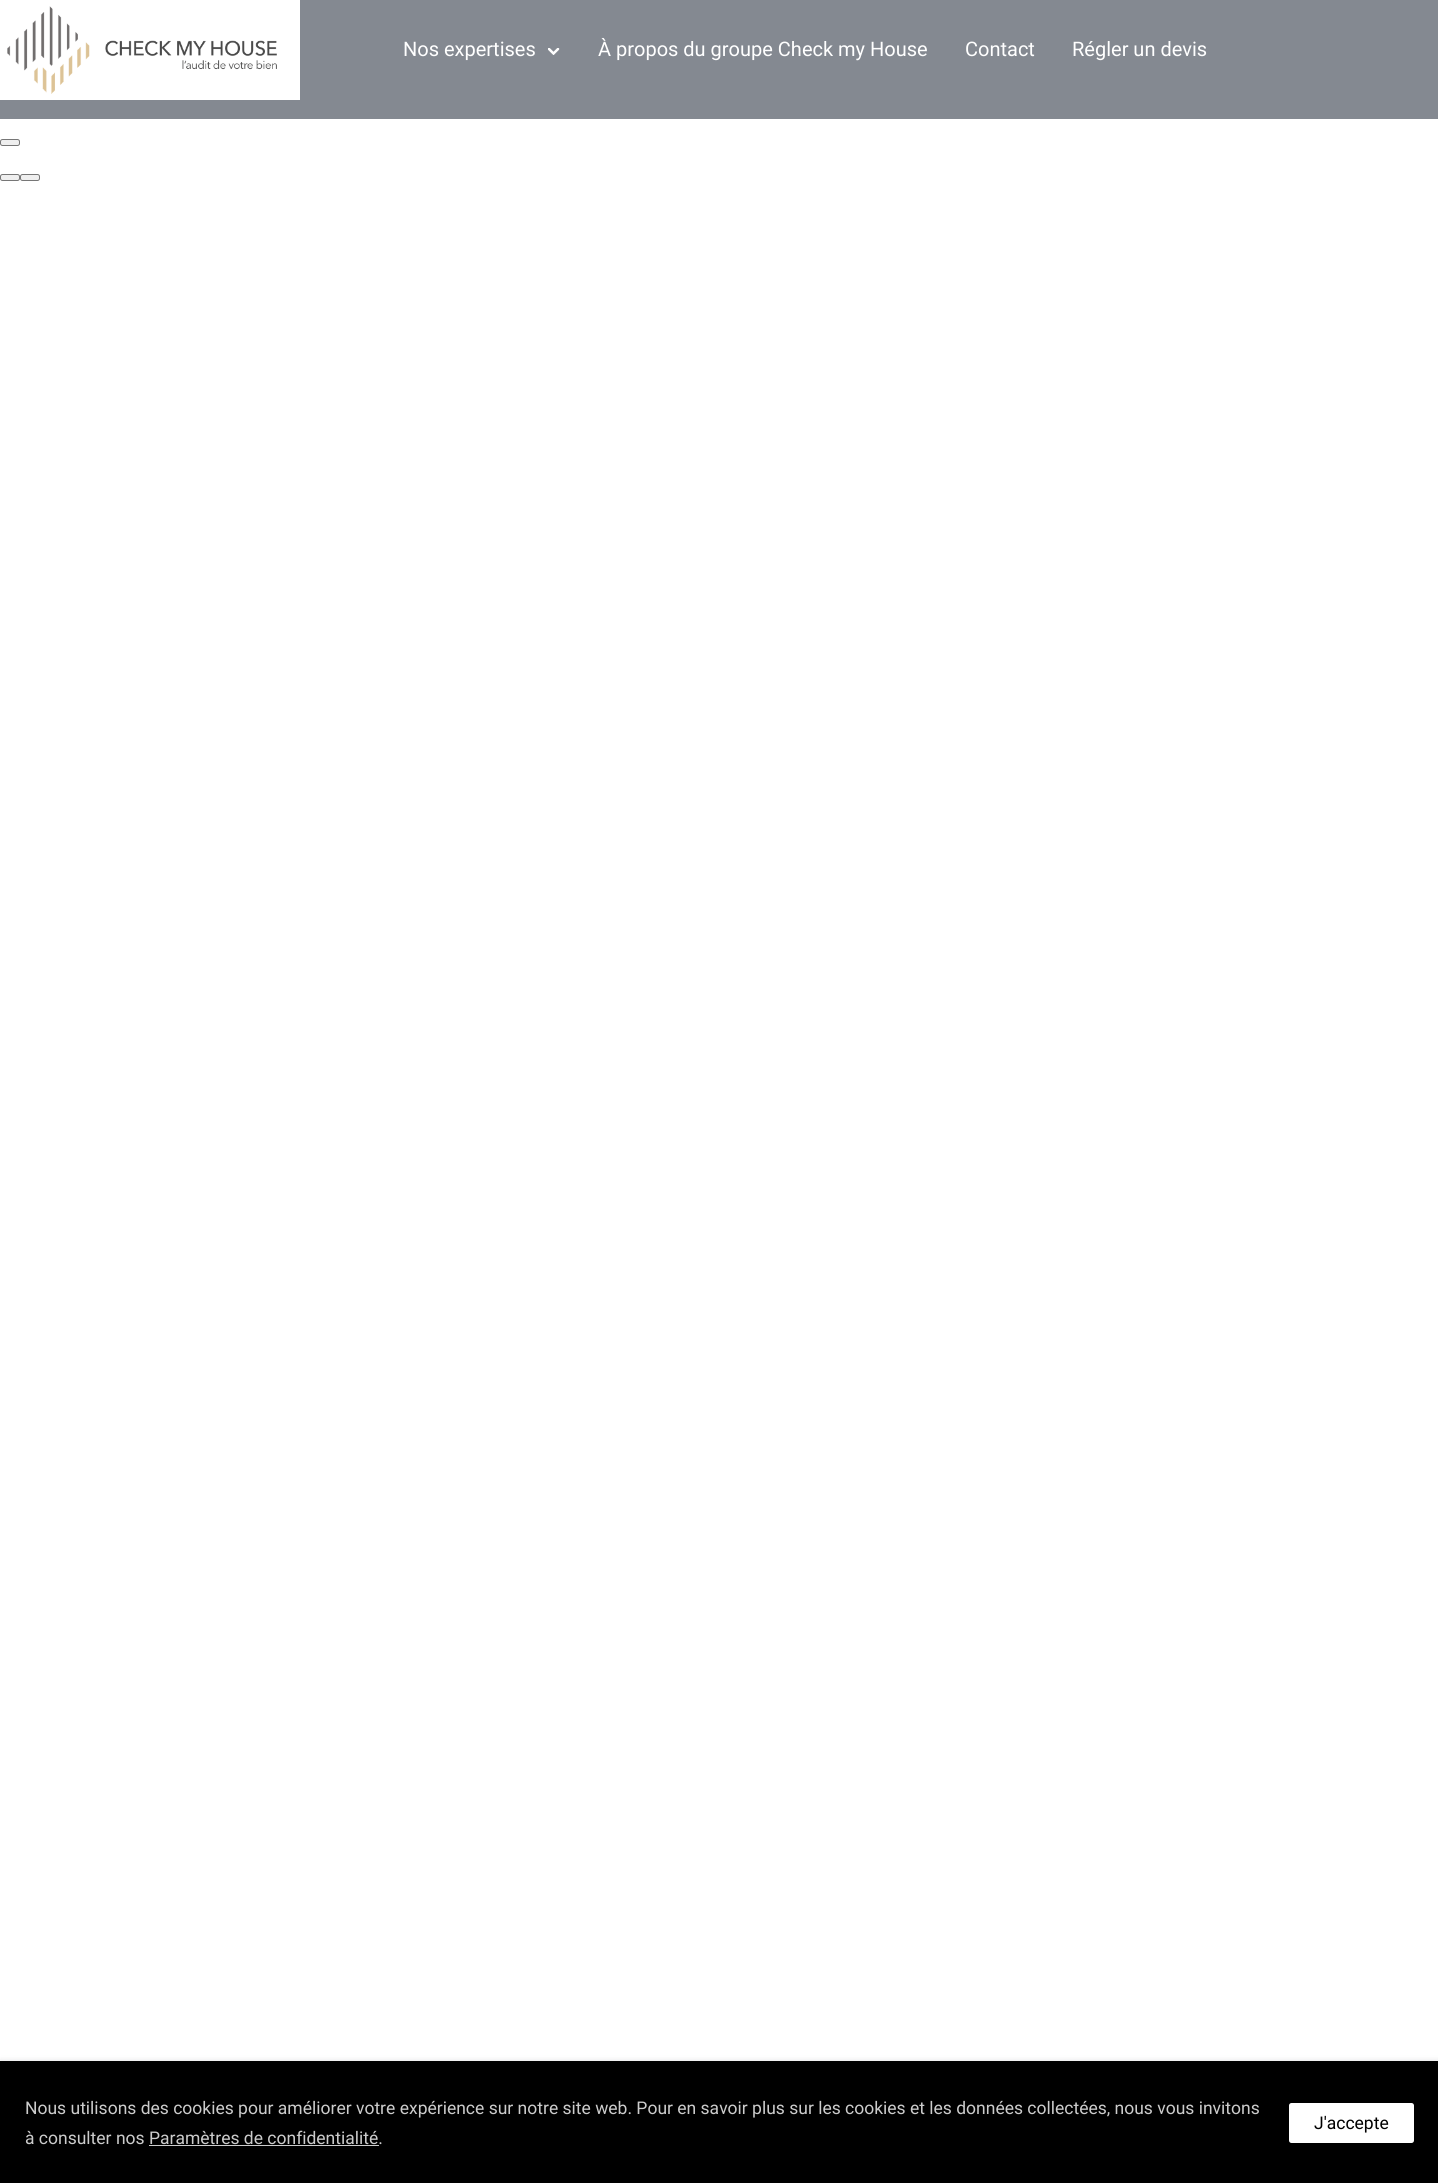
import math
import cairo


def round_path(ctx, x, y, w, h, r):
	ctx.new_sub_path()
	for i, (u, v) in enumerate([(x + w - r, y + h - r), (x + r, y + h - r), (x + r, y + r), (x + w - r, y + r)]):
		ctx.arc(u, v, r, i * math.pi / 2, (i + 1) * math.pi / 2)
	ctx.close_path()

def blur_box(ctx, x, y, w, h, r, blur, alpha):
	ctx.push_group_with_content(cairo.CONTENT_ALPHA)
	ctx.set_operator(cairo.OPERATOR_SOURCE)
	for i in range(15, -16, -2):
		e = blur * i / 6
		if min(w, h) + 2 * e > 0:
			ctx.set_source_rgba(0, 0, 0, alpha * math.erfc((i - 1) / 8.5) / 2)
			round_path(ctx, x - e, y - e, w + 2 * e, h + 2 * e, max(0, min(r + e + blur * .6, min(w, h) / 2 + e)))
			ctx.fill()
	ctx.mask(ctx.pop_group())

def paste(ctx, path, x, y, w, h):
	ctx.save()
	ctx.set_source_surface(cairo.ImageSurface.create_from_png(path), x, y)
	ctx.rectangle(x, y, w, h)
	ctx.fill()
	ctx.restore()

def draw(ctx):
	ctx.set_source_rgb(1, 1, 1)
	ctx.paint()
	ctx.set_source_rgb(0.518, 0.537, 0.569)
	ctx.rectangle(0, 0, 1438, 119)
	ctx.fill()
	paste(ctx, 'media/1.png', 0, 0, 300, 100)
	ctx.select_font_face('Roboto')
	ctx.set_font_size(20)
	ctx.set_source_rgb(1, 1, 1)
	ctx.move_to(403, 56)
	ctx.show_text('Nos expertises')
	ctx.save()
	ctx.rectangle(548, 48, 12, 7)
	ctx.clip()
	ctx.new_path()
	ctx.move_to(558, 49)
	ctx.line_to(553.5, 53.5)
	ctx.line_to(549, 49)
	ctx.set_line_width(2.5)
	ctx.set_line_cap(cairo.LINE_CAP_ROUND)
	ctx.stroke()
	ctx.restore()
	for x, y, s in [
		(598, 56, 'À propos du groupe Check my House'),
		(965, 56, 'Contact'),
		(1072, 56, 'Régler un devis'),
	]:
		ctx.move_to(x, y)
		ctx.show_text(s)
	ctx.set_source_rgb(0.937, 0.937, 0.937)
	round_path(ctx, 0.5, 139.5, 19, 6, 2)
	ctx.fill_preserve()
	ctx.set_source_rgb(0.463, 0.463, 0.463)
	ctx.set_line_width(1)
	ctx.stroke()
	ctx.set_source_rgb(0.937, 0.937, 0.937)
	round_path(ctx, 0.5, 174.5, 19, 6, 2)
	ctx.fill_preserve()
	ctx.set_source_rgb(0.463, 0.463, 0.463)
	ctx.stroke()
	ctx.set_source_rgb(0.937, 0.937, 0.937)
	round_path(ctx, 20.5, 174.5, 19, 6, 2)
	ctx.fill_preserve()
	ctx.set_source_rgb(0.463, 0.463, 0.463)
	ctx.stroke()
	ctx.set_source_rgb(0.047, 0.047, 0.051)
	blur_box(ctx, 0, 2060, 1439, 123, 0, 2.5, 0.1)
	ctx.set_source_rgb(0, 0, 0)
	ctx.rectangle(0, 2061, 1438, 122)
	ctx.fill()
	ctx.set_font_size(17.5)
	ctx.set_source_rgb(0.8, 0.8, 0.8)
	ctx.move_to(25, 2114)
	ctx.show_text('Nous utilisons des cookies pour améliorer votre expérience sur notre site web. Pour en savoir plus sur les cookies et les données collectées, nous vous invitons')
	ctx.move_to(25, 2144)
	ctx.show_text('à consulter nos Paramètres de confidentialité.')
	ctx.rectangle(149, 2145, 230, 1)
	ctx.fill()
	ctx.set_source_rgb(1, 1, 1)
	round_path(ctx, 1289, 2103, 125, 40, 2.5)
	ctx.fill()
	ctx.set_source_rgb(0, 0, 0)
	ctx.move_to(1314, 2129)
	ctx.show_text('J\'accepte')


surface = cairo.ImageSurface(cairo.FORMAT_RGB24, 1438, 2183)
ctx = cairo.Context(surface)
options = cairo.FontOptions()
options.set_hint_metrics(cairo.HINT_METRICS_OFF)
options.set_hint_style(cairo.HINT_STYLE_NONE)
ctx.set_font_options(options)
ctx.set_miter_limit(4)
draw(ctx)
surface.write_to_png('image.png')
